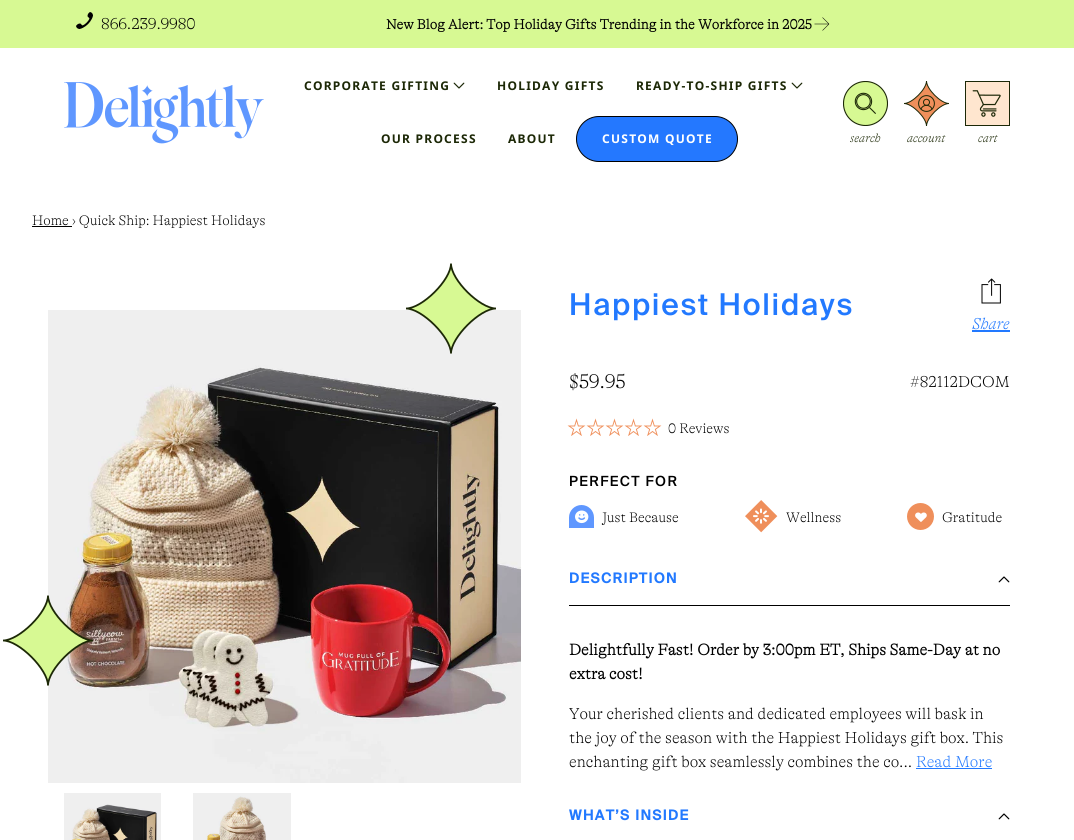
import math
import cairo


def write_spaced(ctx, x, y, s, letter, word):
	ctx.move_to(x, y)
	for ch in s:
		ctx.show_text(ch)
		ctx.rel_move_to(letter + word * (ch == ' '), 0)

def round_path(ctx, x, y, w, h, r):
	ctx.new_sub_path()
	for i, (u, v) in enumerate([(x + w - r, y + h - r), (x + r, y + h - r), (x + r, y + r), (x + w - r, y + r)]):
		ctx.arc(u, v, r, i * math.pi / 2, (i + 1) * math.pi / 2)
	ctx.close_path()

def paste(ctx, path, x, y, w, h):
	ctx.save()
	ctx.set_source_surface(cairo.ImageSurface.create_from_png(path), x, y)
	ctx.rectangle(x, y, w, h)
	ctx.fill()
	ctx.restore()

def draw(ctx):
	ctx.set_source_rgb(1, 1, 1)
	ctx.paint()
	ctx.set_source_rgb(0.843, 0.976, 0.576)
	ctx.rectangle(0, 0, 1074, 48)
	ctx.fill()
	paste(ctx, 'media/1.png', 76, 12, 17, 17)
	ctx.select_font_face('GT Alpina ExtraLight')
	ctx.set_font_size(16)
	ctx.set_source_rgb(0, 0, 0)
	ctx.move_to(101, 29)
	ctx.show_text('866.239.9980')
	ctx.select_font_face('GT Alpina', cairo.FONT_SLANT_NORMAL, cairo.FONT_WEIGHT_BOLD)
	ctx.set_font_size(14)
	ctx.move_to(386, 29)
	ctx.show_text('New Blog Alert: Top Holiday Gifts Trending in the Workforce in 2025')
	ctx.new_path()
	ctx.move_to(822.5, 30.5)
	ctx.line_to(829, 24)
	ctx.move_to(829, 24)
	ctx.line_to(822.5, 17.5)
	ctx.move_to(829, 24)
	ctx.line_to(814.5, 24)
	ctx.set_line_width(0.5)
	ctx.stroke()
	paste(ctx, 'media/2.png', 64, 82, 200, 62)
	ctx.select_font_face('Noto Sans', cairo.FONT_SLANT_NORMAL, cairo.FONT_WEIGHT_BOLD)
	ctx.set_font_size(12)
	ctx.set_source_rgb(0.11, 0.157, 0.027)
	write_spaced(ctx, 304, 90, 'CORPORATE GIFTING', 1.25, 0)
	paste(ctx, 'media/3.png', 453, 82, 12, 7)
	write_spaced(ctx, 497, 90, 'HOLIDAY GIFTS', 1.25, 0)
	write_spaced(ctx, 636, 90, 'READY-TO-SHIP GIFTS', 1.25, 0)
	paste(ctx, 'media/3.png', 791, 82, 12, 7)
	write_spaced(ctx, 381, 143, 'OUR PROCESS', 1.25, 0)
	write_spaced(ctx, 508, 143, 'ABOUT', 1.25, 0)
	ctx.set_source_rgb(0.141, 0.471, 1)
	round_path(ctx, 576.5, 116.5, 161, 45, 22.5)
	ctx.fill_preserve()
	ctx.set_source_rgb(0, 0, 0)
	ctx.set_line_width(1)
	ctx.stroke()
	ctx.set_source_rgb(1, 1, 1)
	write_spaced(ctx, 602, 143, 'CUSTOM QUOTE', 1.25, 0)
	paste(ctx, 'media/4.png', 843, 81, 45, 45)
	ctx.select_font_face('GT Alpina ExtraLight', cairo.FONT_SLANT_ITALIC)
	ctx.set_source_rgb(0.11, 0.157, 0.027)
	ctx.move_to(850, 142)
	ctx.show_text('search')
	paste(ctx, 'media/5.png', 904, 81, 45, 45)
	ctx.move_to(907, 142)
	ctx.show_text('account')
	paste(ctx, 'media/6.png', 965, 81, 45, 45)
	ctx.move_to(978, 142)
	ctx.show_text('cart')
	ctx.set_source_rgb(0, 0, 0)
	ctx.rectangle(32, 226, 40, 1)
	ctx.fill()
	ctx.select_font_face('GT Alpina ExtraLight')
	ctx.set_font_size(14)
	ctx.move_to(32, 225)
	ctx.show_text('Home › Quick Ship: Happiest Holidays')
	paste(ctx, 'media/7.png', 48, 310, 473, 473)
	ctx.set_source_rgb(0.843, 0.976, 0.576)
	ctx.new_path()
	ctx.move_to(451, 354)
	ctx.curve_to(451, 337, 422, 309, 406, 309)
	ctx.curve_to(422, 309, 451, 280, 451, 264)
	ctx.curve_to(451, 280, 480, 309, 496, 309)
	ctx.curve_to(480, 309, 451, 337, 451, 354)
	ctx.close_path()
	ctx.fill()
	ctx.new_path()
	ctx.move_to(451, 353.5)
	ctx.curve_to(451, 337.5, 422, 308.5, 406, 308.5)
	ctx.curve_to(422, 308.5, 451, 280, 451, 263.5)
	ctx.curve_to(451, 280, 480, 308.5, 496, 308.5)
	ctx.curve_to(480, 308.5, 451, 337.5, 451, 353.5)
	ctx.close_path()
	ctx.set_source_rgb(0.11, 0.157, 0.027)
	ctx.set_line_width(1.8)
	ctx.stroke()
	ctx.set_source_rgb(0.843, 0.976, 0.576)
	ctx.new_path()
	ctx.move_to(48, 686)
	ctx.curve_to(48, 669, 19, 641, 3, 641)
	ctx.curve_to(19, 641, 48, 612, 48, 596)
	ctx.curve_to(48, 612, 77, 641, 93, 641)
	ctx.curve_to(77, 641, 48, 669, 48, 686)
	ctx.close_path()
	ctx.fill()
	ctx.new_path()
	ctx.move_to(48, 685.5)
	ctx.curve_to(48, 669.5, 19, 640.5, 3, 640.5)
	ctx.curve_to(19, 640.5, 48, 612, 48, 595.5)
	ctx.curve_to(48, 612, 77, 640.5, 93, 640.5)
	ctx.curve_to(77, 640.5, 48, 669.5, 48, 685.5)
	ctx.close_path()
	ctx.set_source_rgb(0.11, 0.157, 0.027)
	ctx.stroke()
	paste(ctx, 'media/8.png', 64, 793, 97, 47)
	paste(ctx, 'media/9.png', 193, 793, 98, 47)
	ctx.select_font_face('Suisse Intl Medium')
	ctx.set_font_size(30)
	ctx.set_source_rgb(0.133, 0.475, 1)
	write_spaced(ctx, 569, 315, 'Happiest Holidays', 1.75, 0)
	paste(ctx, 'media/10.png', 981, 278, 20, 26)
	ctx.select_font_face('GT Alpina ExtraLight', cairo.FONT_SLANT_ITALIC)
	ctx.set_font_size(16)
	ctx.move_to(972, 329)
	ctx.show_text('Share')
	ctx.rectangle(972, 330, 38, 2)
	ctx.fill()
	ctx.select_font_face('GT Alpina ExtraLight')
	ctx.set_font_size(20)
	ctx.set_source_rgb(0, 0, 0)
	ctx.move_to(569, 388)
	ctx.show_text('$59.95')
	ctx.set_font_size(16)
	ctx.move_to(910, 387)
	ctx.show_text('#82112DCOM')
	paste(ctx, 'media/11.png', 567, 418, 95, 18)
	ctx.set_font_size(14)
	ctx.move_to(668, 433)
	ctx.show_text('0 Reviews')
	ctx.select_font_face('Suisse Intl Medium')
	write_spaced(ctx, 569, 486, 'PERFECT FOR', 1.4, 0)
	paste(ctx, 'media/12.png', 569, 505, 25, 23)
	ctx.select_font_face('GT Alpina ExtraLight')
	ctx.move_to(602, 522)
	ctx.show_text('Just Because')
	paste(ctx, 'media/13.png', 745, 500, 33, 33)
	ctx.move_to(786, 522)
	ctx.show_text('Wellness')
	paste(ctx, 'media/14.png', 907, 503, 27, 27)
	ctx.move_to(942, 522)
	ctx.show_text('Gratitude')
	ctx.rectangle(569, 605, 441, 1)
	ctx.fill()
	ctx.select_font_face('Suisse Intl', cairo.FONT_SLANT_NORMAL, cairo.FONT_WEIGHT_BOLD)
	ctx.set_source_rgb(0.133, 0.475, 1)
	write_spaced(ctx, 569, 583, 'DESCRIPTION', 1.4, 0)
	paste(ctx, 'media/15.png', 998, 576, 12, 7)
	ctx.select_font_face('GT Alpina', cairo.FONT_SLANT_NORMAL, cairo.FONT_WEIGHT_BOLD)
	ctx.set_font_size(16)
	ctx.set_source_rgb(0, 0, 0)
	ctx.move_to(569, 655)
	ctx.show_text('Delightfully Fast! Order by 3:00pm ET, Ships Same-Day at no')
	ctx.move_to(569, 679)
	ctx.show_text('extra cost!')
	ctx.select_font_face('GT Alpina ExtraLight')
	for x, y, s in [
		(569, 719, 'Your cherished clients and dedicated employees will bask in'),
		(569, 743, 'the joy of the season with the Happiest Holidays gift box. This'),
		(569, 767, 'enchanting gift box seamlessly combines the co...'),
	]:
		ctx.move_to(x, y)
		ctx.show_text(s)
	ctx.set_source_rgb(0.133, 0.475, 1)
	ctx.move_to(916, 767)
	ctx.show_text('Read More')
	ctx.rectangle(916, 768, 76, 1)
	ctx.fill()
	ctx.select_font_face('Suisse Intl', cairo.FONT_SLANT_NORMAL, cairo.FONT_WEIGHT_BOLD)
	ctx.set_font_size(14)
	write_spaced(ctx, 569, 820, 'WHAT’S INSIDE', 1.4, 0)
	paste(ctx, 'media/15.png', 998, 813, 12, 7)


surface = cairo.ImageSurface(cairo.FORMAT_RGB24, 1074, 840)
ctx = cairo.Context(surface)
options = cairo.FontOptions()
options.set_hint_metrics(cairo.HINT_METRICS_OFF)
options.set_hint_style(cairo.HINT_STYLE_NONE)
ctx.set_font_options(options)
ctx.set_miter_limit(4)
draw(ctx)
surface.write_to_png('image.png')
